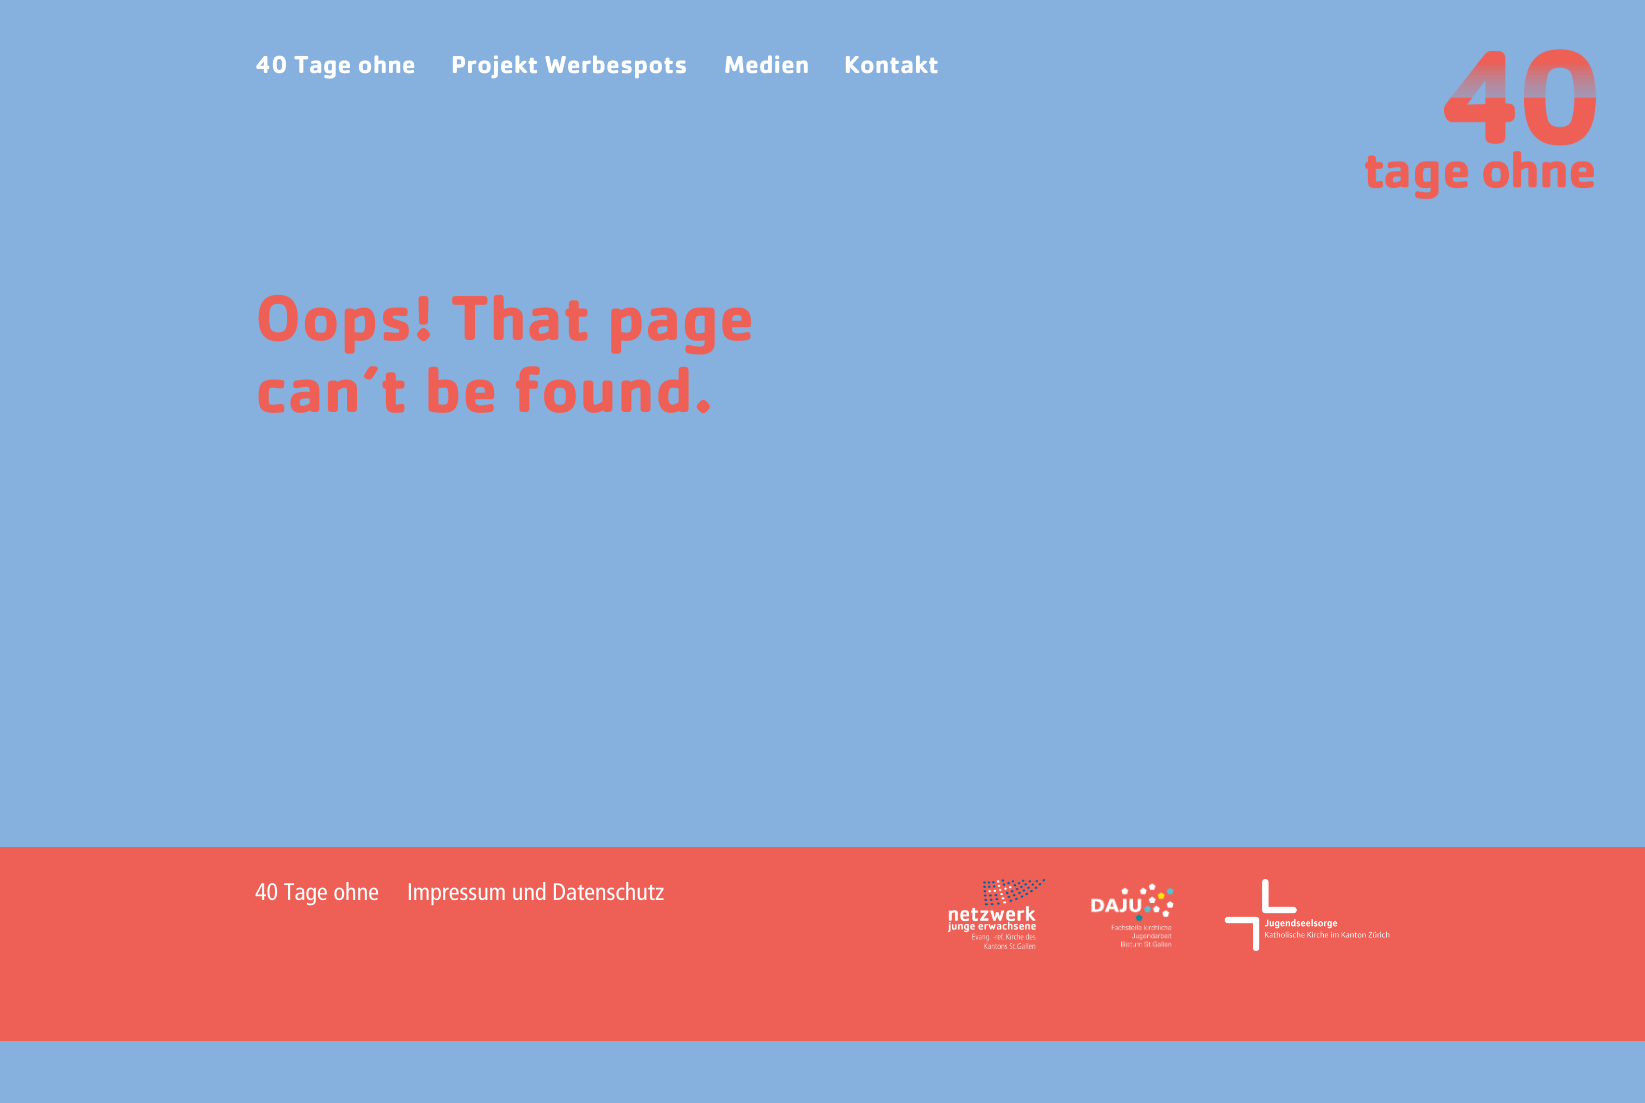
import math
import cairo


def paste(ctx, path, x, y, w, h):
	ctx.save()
	ctx.set_source_surface(cairo.ImageSurface.create_from_png(path), x, y)
	ctx.rectangle(x, y, w, h)
	ctx.fill()
	ctx.restore()

def draw(ctx):
	ctx.set_source_rgb(0.525, 0.69, 0.867)
	ctx.paint()
	ctx.select_font_face('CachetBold', cairo.FONT_SLANT_NORMAL, cairo.FONT_WEIGHT_BOLD)
	ctx.set_font_size(25.5)
	ctx.set_source_rgb(1, 1, 1)
	for x, y, s in [
		(255, 73, '40 Tage ohne'),
		(451, 73, 'Projekt Werbespots'),
		(724, 73, 'Medien'),
		(844, 73, 'Kontakt'),
	]:
		ctx.move_to(x, y)
		ctx.show_text(s)
	paste(ctx, 'media/1.png', 1365, 49, 231, 151)
	ctx.set_font_size(65.75)
	ctx.set_source_rgb(0.933, 0.373, 0.333)
	ctx.move_to(255, 340)
	ctx.show_text('Oops! That page')
	ctx.move_to(255, 412)
	ctx.show_text('can’t be found.')
	ctx.rectangle(0, 847, 1645, 194)
	ctx.fill()
	ctx.select_font_face('Frutiger')
	ctx.set_font_size(24)
	ctx.set_source_rgb(1, 1, 1)
	ctx.move_to(255, 900)
	ctx.show_text('40 Tage ohne')
	ctx.move_to(407, 900)
	ctx.show_text('Impressum und Datenschutz')
	paste(ctx, 'media/2.png', 948, 879, 97, 70)
	paste(ctx, 'media/3.png', 1091, 883, 83, 65)
	paste(ctx, 'media/4.png', 1224, 879, 166, 72)


surface = cairo.ImageSurface(cairo.FORMAT_RGB24, 1645, 1103)
ctx = cairo.Context(surface)
options = cairo.FontOptions()
options.set_hint_metrics(cairo.HINT_METRICS_OFF)
options.set_hint_style(cairo.HINT_STYLE_NONE)
ctx.set_font_options(options)
ctx.set_miter_limit(4)
draw(ctx)
surface.write_to_png('image.png')
